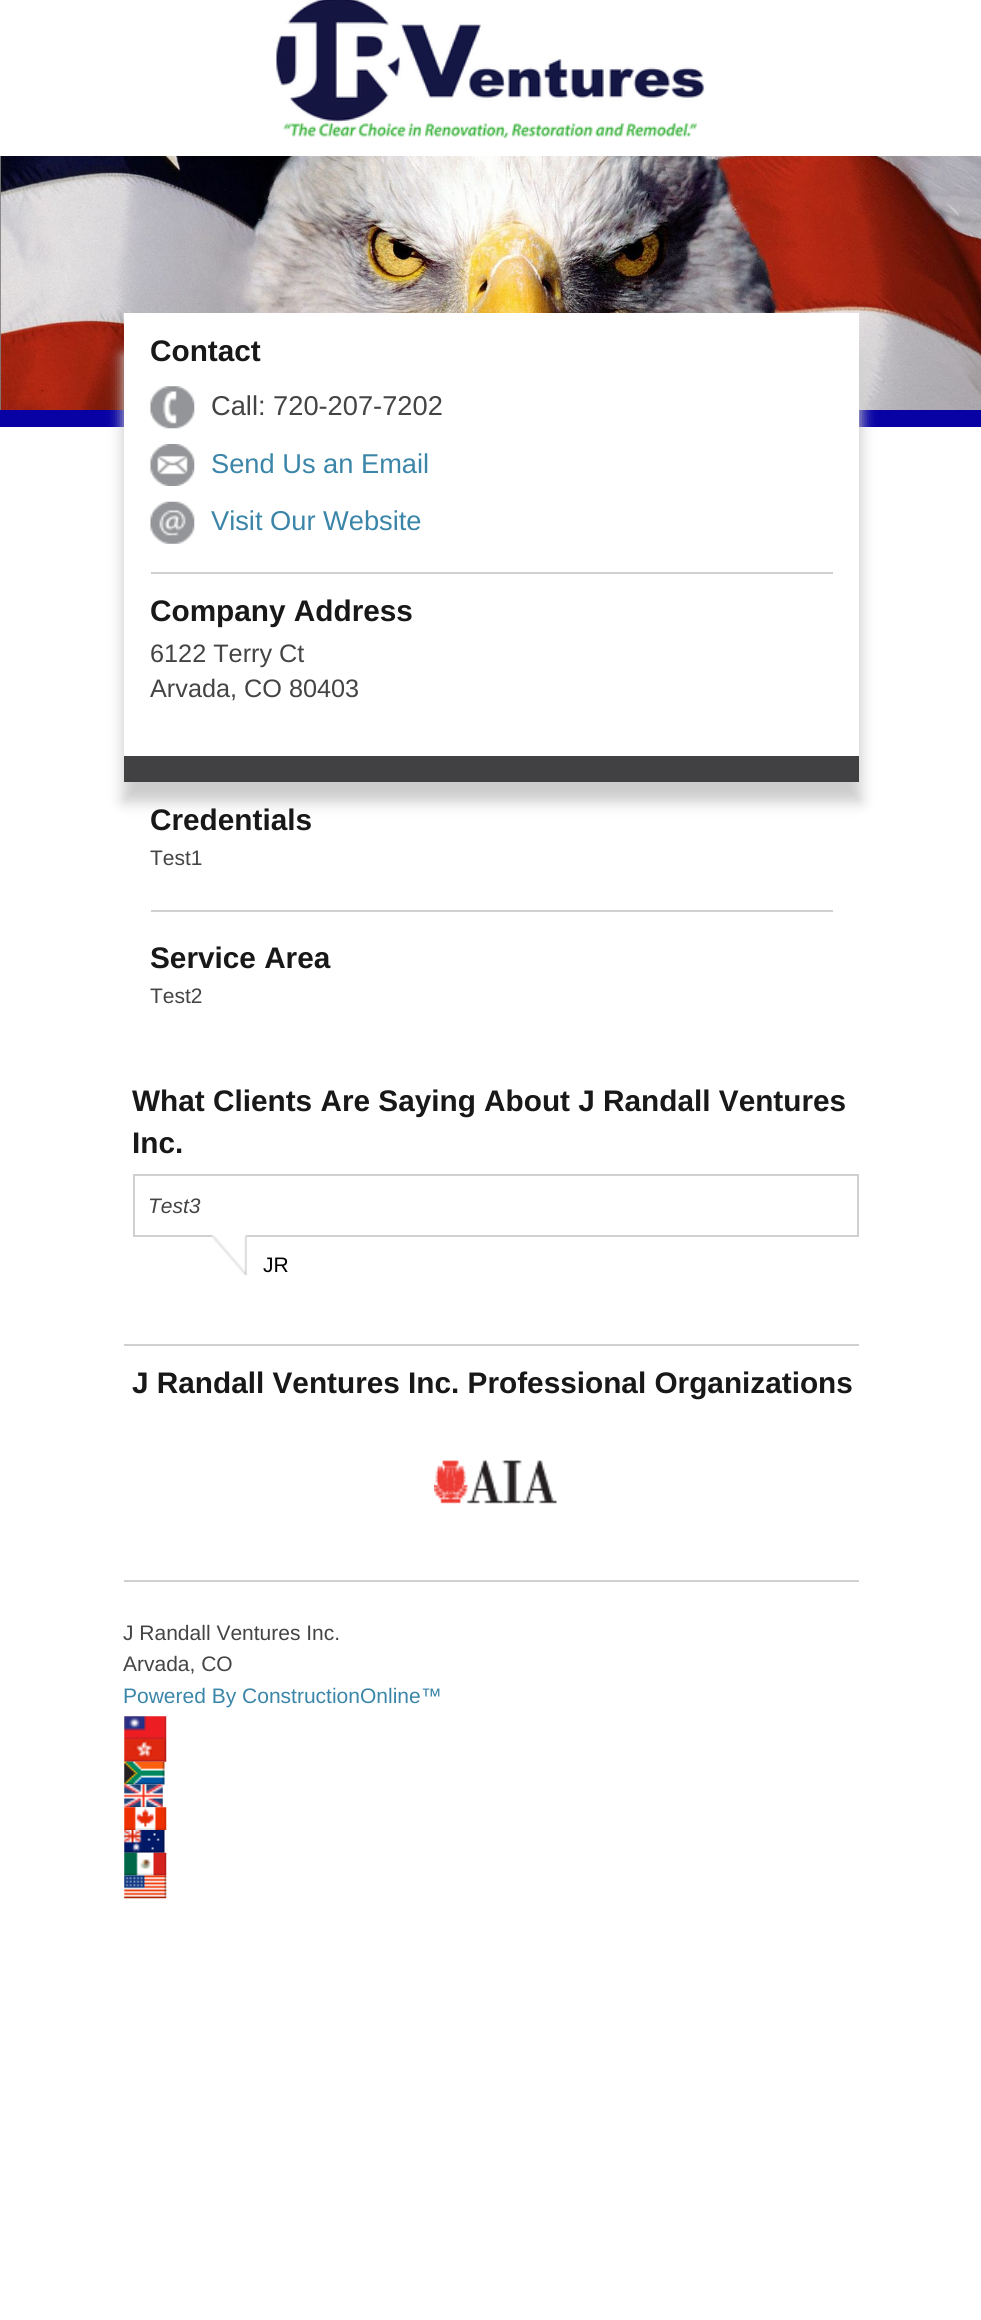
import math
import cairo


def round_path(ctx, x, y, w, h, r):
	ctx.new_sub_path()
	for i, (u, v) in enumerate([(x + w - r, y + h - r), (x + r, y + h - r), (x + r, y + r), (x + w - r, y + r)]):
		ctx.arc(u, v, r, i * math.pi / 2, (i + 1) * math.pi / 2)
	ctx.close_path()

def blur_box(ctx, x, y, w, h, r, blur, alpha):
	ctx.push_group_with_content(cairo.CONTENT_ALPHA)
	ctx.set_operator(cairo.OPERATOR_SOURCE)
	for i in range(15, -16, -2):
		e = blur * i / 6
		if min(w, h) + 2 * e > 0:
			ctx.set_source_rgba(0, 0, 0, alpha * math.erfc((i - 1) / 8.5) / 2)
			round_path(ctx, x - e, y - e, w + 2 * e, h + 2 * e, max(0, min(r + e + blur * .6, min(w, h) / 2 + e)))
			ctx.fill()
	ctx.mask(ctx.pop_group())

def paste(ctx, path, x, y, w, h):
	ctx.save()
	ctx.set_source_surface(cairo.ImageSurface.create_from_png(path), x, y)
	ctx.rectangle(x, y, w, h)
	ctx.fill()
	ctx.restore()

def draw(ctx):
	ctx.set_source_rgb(1, 1, 1)
	ctx.paint()
	ctx.set_source_rgb(0.502, 0.502, 0.502)
	ctx.rectangle(0, 156, 1, 254)
	ctx.fill()
	paste(ctx, 'media/1.png', 276, 0, 429, 138)
	paste(ctx, 'media/2.png', 0, 156, 981, 254)
	ctx.set_source_rgb(0.035, 0.008, 0.647)
	ctx.rectangle(0, 410, 981, 17)
	ctx.fill()
	ctx.set_source_rgb(0.8, 0.8, 0.8)
	blur_box(ctx, 123, 355, 738, 447, 0, 7, 1)
	ctx.set_source_rgb(1, 1, 1)
	ctx.rectangle(124, 313, 735, 443)
	ctx.fill()
	ctx.select_font_face('Liberation Sans', cairo.FONT_SLANT_NORMAL, cairo.FONT_WEIGHT_BOLD)
	ctx.set_font_size(29.75)
	ctx.set_source_rgb(0.094, 0.094, 0.094)
	ctx.move_to(150, 361)
	ctx.show_text('Contact')
	paste(ctx, 'media/3.png', 150, 386, 45, 43)
	ctx.select_font_face('Liberation Sans')
	ctx.set_font_size(27.25)
	ctx.set_source_rgb(0.267, 0.267, 0.267)
	ctx.move_to(211, 415)
	ctx.show_text('Call: 720-207-7202')
	paste(ctx, 'media/4.png', 150, 444, 45, 42)
	ctx.set_source_rgb(0.231, 0.522, 0.659)
	ctx.move_to(211, 473)
	ctx.show_text('Send Us an Email')
	paste(ctx, 'media/5.png', 150, 501, 45, 43)
	ctx.move_to(211, 530)
	ctx.show_text('Visit Our Website')
	ctx.set_source_rgb(0.816, 0.816, 0.816)
	ctx.rectangle(151, 572, 682, 2)
	ctx.fill()
	ctx.select_font_face('Liberation Sans', cairo.FONT_SLANT_NORMAL, cairo.FONT_WEIGHT_BOLD)
	ctx.set_font_size(29.75)
	ctx.set_source_rgb(0.094, 0.094, 0.094)
	ctx.move_to(150, 621)
	ctx.show_text('Company Address')
	ctx.select_font_face('Liberation Sans')
	ctx.set_font_size(25.25)
	ctx.set_source_rgb(0.267, 0.267, 0.267)
	ctx.move_to(150, 662)
	ctx.show_text('6122 Terry Ct')
	ctx.move_to(150, 697)
	ctx.show_text('Arvada, CO 80403')
	ctx.set_source_rgb(0.255, 0.251, 0.259)
	ctx.rectangle(124, 756, 735, 26)
	ctx.fill()
	ctx.select_font_face('Liberation Sans', cairo.FONT_SLANT_NORMAL, cairo.FONT_WEIGHT_BOLD)
	ctx.set_font_size(29.75)
	ctx.set_source_rgb(0.094, 0.094, 0.094)
	ctx.move_to(150, 830)
	ctx.show_text('Credentials')
	ctx.select_font_face('Liberation Sans')
	ctx.set_font_size(21)
	ctx.set_source_rgb(0.267, 0.267, 0.267)
	ctx.move_to(150, 865)
	ctx.show_text('Test1')
	ctx.set_source_rgb(0.816, 0.816, 0.816)
	ctx.rectangle(151, 910, 682, 2)
	ctx.fill()
	ctx.select_font_face('Liberation Sans', cairo.FONT_SLANT_NORMAL, cairo.FONT_WEIGHT_BOLD)
	ctx.set_font_size(29.75)
	ctx.set_source_rgb(0.094, 0.094, 0.094)
	ctx.move_to(150, 968)
	ctx.show_text('Service Area')
	ctx.select_font_face('Liberation Sans')
	ctx.set_font_size(21)
	ctx.set_source_rgb(0.267, 0.267, 0.267)
	ctx.move_to(150, 1003)
	ctx.show_text('Test2')
	ctx.select_font_face('Liberation Sans', cairo.FONT_SLANT_NORMAL, cairo.FONT_WEIGHT_BOLD)
	ctx.set_font_size(29.75)
	ctx.set_source_rgb(0.094, 0.094, 0.094)
	ctx.move_to(132, 1111)
	ctx.show_text('What Clients Are Saying About J Randall Ventures')
	ctx.move_to(132, 1153)
	ctx.show_text('Inc.')
	ctx.rectangle(134, 1175, 724, 61)
	ctx.set_source_rgb(0.816, 0.816, 0.816)
	ctx.stroke()
	ctx.select_font_face('Liberation Sans', cairo.FONT_SLANT_ITALIC)
	ctx.set_font_size(21)
	ctx.set_source_rgb(0.267, 0.267, 0.267)
	ctx.move_to(148, 1213)
	ctx.show_text('Test3')
	paste(ctx, 'media/6.png', 211, 1235, 36, 41)
	ctx.select_font_face('Liberation Sans')
	ctx.set_source_rgb(0, 0, 0)
	ctx.move_to(263, 1272)
	ctx.show_text('JR')
	ctx.set_source_rgb(0.816, 0.816, 0.816)
	ctx.rectangle(124, 1344, 735, 2)
	ctx.fill()
	ctx.rectangle(124, 1580, 735, 2)
	ctx.fill()
	ctx.select_font_face('Liberation Sans', cairo.FONT_SLANT_NORMAL, cairo.FONT_WEIGHT_BOLD)
	ctx.set_font_size(29.75)
	ctx.set_source_rgb(0.094, 0.094, 0.094)
	ctx.move_to(132, 1393)
	ctx.show_text('J Randall Ventures Inc. Professional Organizations')
	paste(ctx, 'media/7.png', 434, 1460, 123, 44)
	ctx.select_font_face('Liberation Sans')
	ctx.set_font_size(21)
	ctx.set_source_rgb(0.267, 0.267, 0.267)
	ctx.move_to(123, 1640)
	ctx.show_text('J Randall Ventures Inc.')
	ctx.move_to(123, 1671)
	ctx.show_text('Arvada, CO')
	ctx.set_source_rgb(0.231, 0.522, 0.659)
	ctx.move_to(123, 1703)
	ctx.show_text('Powered By ConstructionOnline™')
	paste(ctx, 'media/8.png', 124, 1716, 43, 23)
	paste(ctx, 'media/9.png', 124, 1739, 43, 23)
	paste(ctx, 'media/10.png', 124, 1761, 41, 24)
	paste(ctx, 'media/11.png', 124, 1784, 39, 24)
	paste(ctx, 'media/12.png', 124, 1807, 43, 23)
	paste(ctx, 'media/13.png', 124, 1830, 41, 23)
	paste(ctx, 'media/14.png', 124, 1852, 43, 24)
	paste(ctx, 'media/15.png', 124, 1875, 43, 24)


surface = cairo.ImageSurface(cairo.FORMAT_RGB24, 981, 2320)
ctx = cairo.Context(surface)
options = cairo.FontOptions()
options.set_hint_metrics(cairo.HINT_METRICS_OFF)
options.set_hint_style(cairo.HINT_STYLE_NONE)
ctx.set_font_options(options)
ctx.set_miter_limit(4)
draw(ctx)
surface.write_to_png('image.png')
